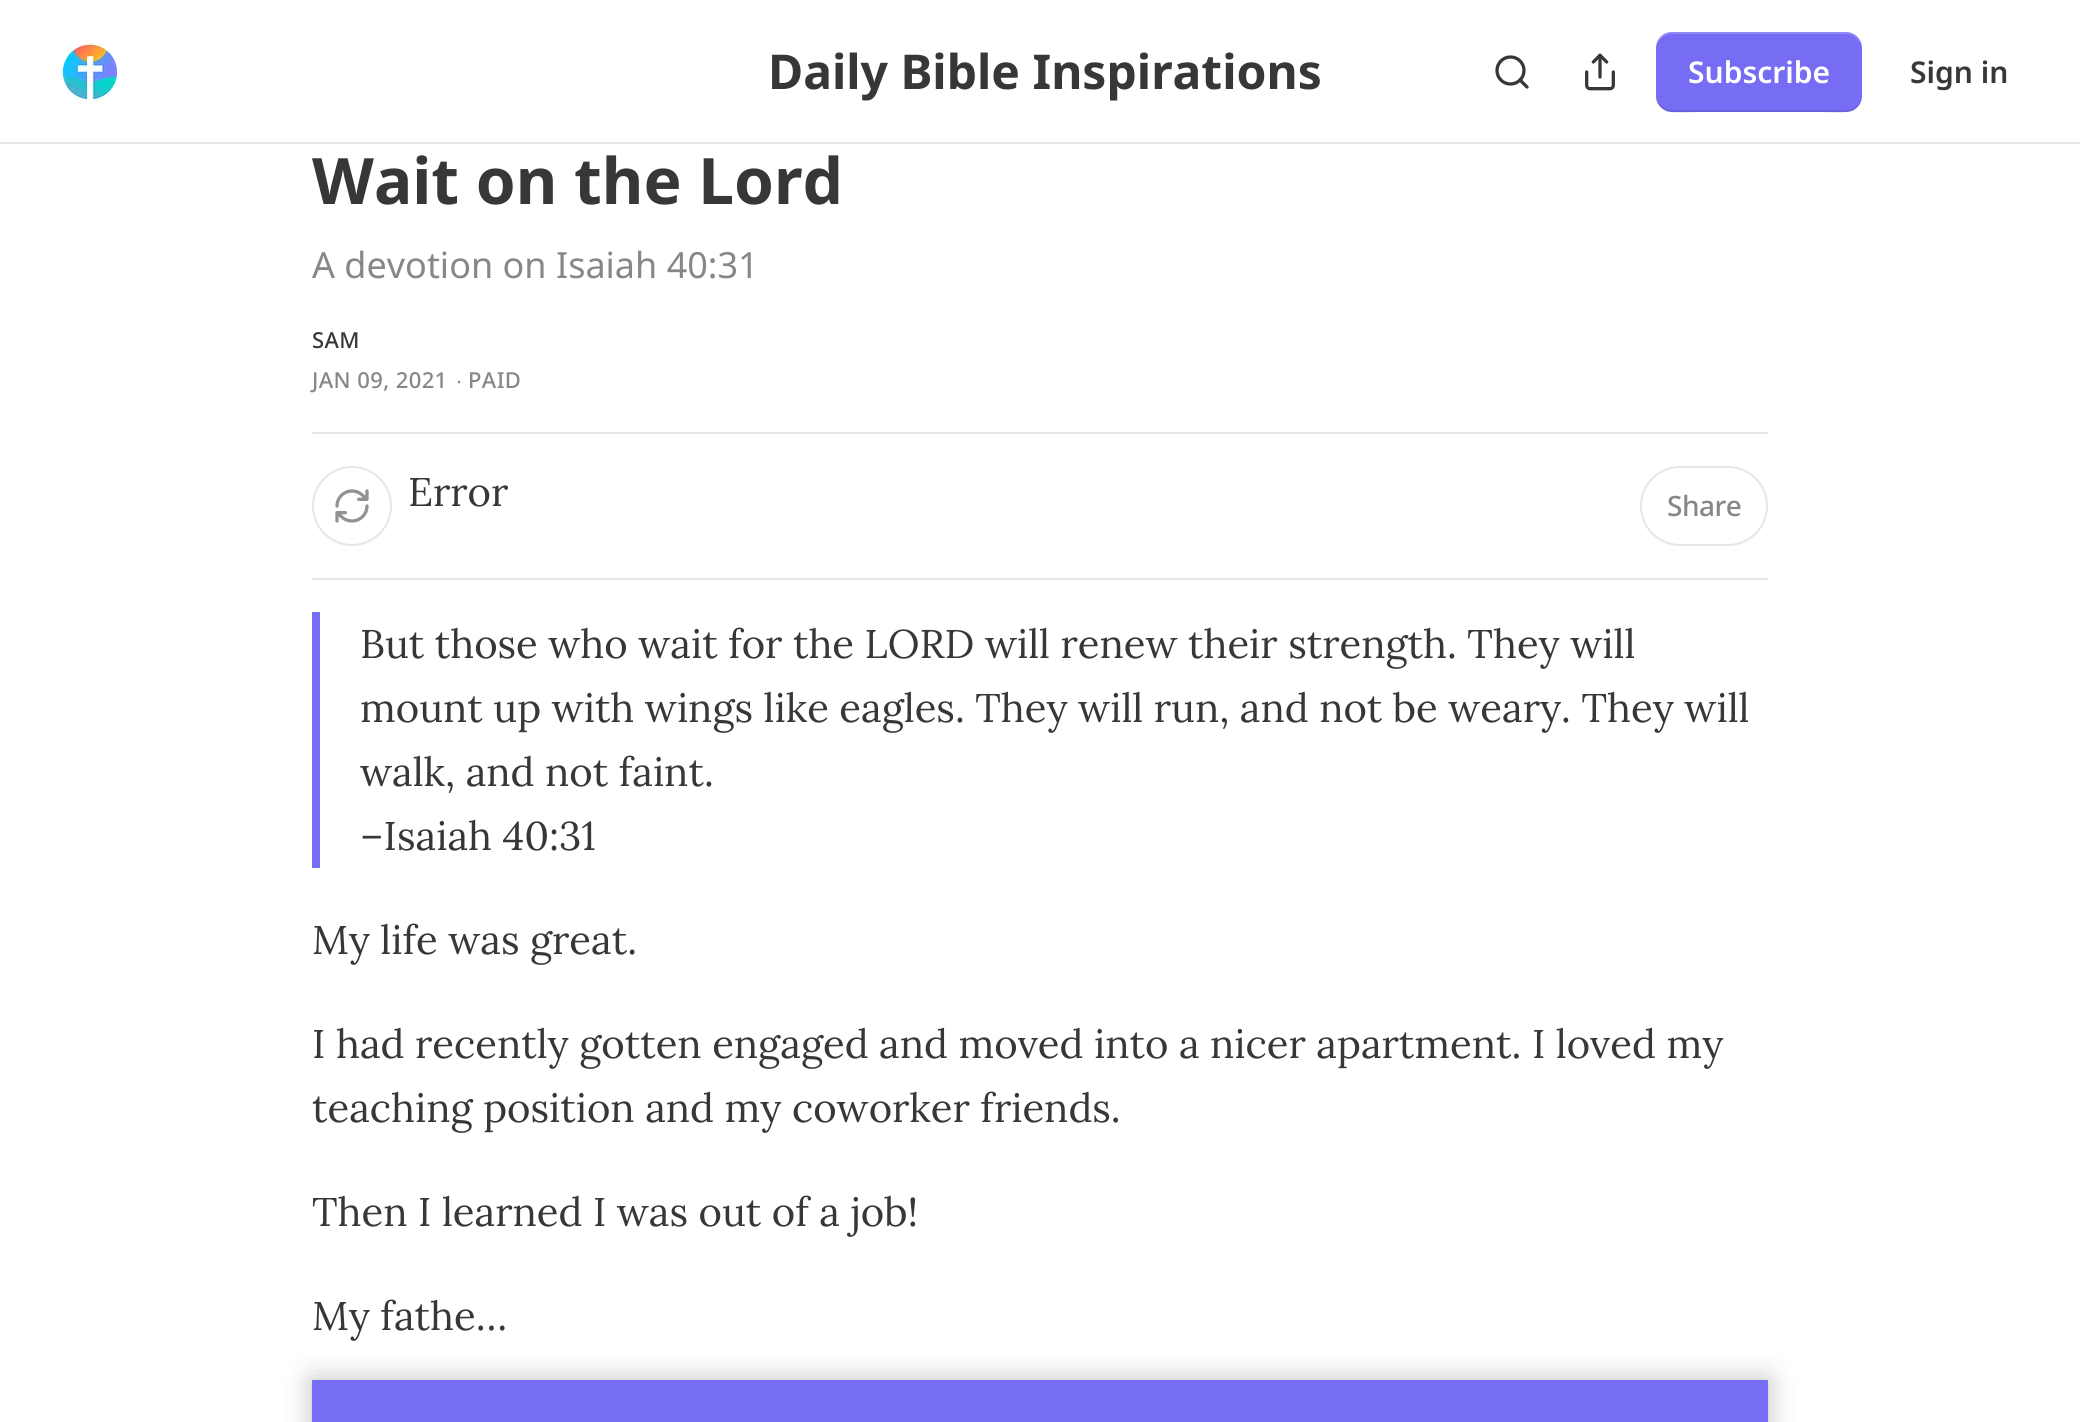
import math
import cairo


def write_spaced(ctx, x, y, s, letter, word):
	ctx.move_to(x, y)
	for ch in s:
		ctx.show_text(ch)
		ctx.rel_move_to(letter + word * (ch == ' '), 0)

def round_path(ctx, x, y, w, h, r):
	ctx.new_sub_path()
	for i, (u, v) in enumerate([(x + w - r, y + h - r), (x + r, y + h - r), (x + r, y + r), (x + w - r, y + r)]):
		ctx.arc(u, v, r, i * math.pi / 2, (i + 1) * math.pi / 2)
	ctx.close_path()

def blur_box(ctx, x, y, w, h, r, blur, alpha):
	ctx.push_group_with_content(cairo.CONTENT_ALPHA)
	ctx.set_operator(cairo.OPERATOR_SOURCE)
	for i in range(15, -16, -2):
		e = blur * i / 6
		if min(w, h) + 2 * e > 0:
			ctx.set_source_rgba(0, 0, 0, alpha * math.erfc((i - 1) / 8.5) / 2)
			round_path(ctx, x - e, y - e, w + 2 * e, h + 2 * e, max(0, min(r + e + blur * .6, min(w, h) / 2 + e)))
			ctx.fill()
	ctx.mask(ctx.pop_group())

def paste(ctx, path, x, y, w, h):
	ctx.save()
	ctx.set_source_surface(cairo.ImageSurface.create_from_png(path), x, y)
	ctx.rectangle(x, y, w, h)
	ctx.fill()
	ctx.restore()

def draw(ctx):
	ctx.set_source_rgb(1, 1, 1)
	ctx.paint()
	ctx.set_source_rgb(0.902, 0.902, 0.902)
	ctx.rectangle(0, 142, 2080, 2)
	ctx.fill()
	paste(ctx, 'media/1.png', 62, 39, 56, 65)
	ctx.select_font_face('Noto Sans', cairo.FONT_SLANT_NORMAL, cairo.FONT_WEIGHT_BOLD)
	ctx.set_font_size(48)
	ctx.set_source_rgb(0.212, 0.216, 0.216)
	ctx.move_to(768, 89)
	ctx.show_text('Daily Bible Inspirations')
	ctx.new_path()
	ctx.arc(1510.5, 70.5, 13.5, 0, 2 * math.pi)
	ctx.set_line_width(3.3)
	ctx.stroke()
	ctx.new_path()
	ctx.move_to(1527, 87)
	ctx.line_to(1520, 80)
	ctx.set_line_cap(cairo.LINE_CAP_ROUND)
	ctx.set_line_join(cairo.LINE_JOIN_ROUND)
	ctx.stroke()
	paste(ctx, 'media/2.png', 1585, 53, 30, 38)
	ctx.set_source_rgb(0.463, 0.427, 0.957)
	round_path(ctx, 1656, 32, 206, 80, 16)
	ctx.fill()
	ctx.set_source_rgba(0, 0, 0, 0.1)
	ctx.new_path()
	ctx.move_to(1656, 94)
	ctx.curve_to(1656, 119, 1685, 112, 1701, 112)
	ctx.line_to(1817, 112)
	ctx.curve_to(1833, 112, 1862, 119, 1862, 94)
	ctx.curve_to(1862, 103, 1855, 110, 1846, 110)
	ctx.line_to(1672, 110)
	ctx.curve_to(1663, 110, 1656, 103, 1656, 94)
	ctx.close_path()
	ctx.fill()
	ctx.set_source_rgba(1, 1, 1, 0.2)
	ctx.new_path()
	ctx.move_to(1672, 34)
	ctx.line_to(1846, 34)
	ctx.curve_to(1855, 34, 1862, 41, 1862, 50)
	ctx.curve_to(1862, 25, 1833, 32, 1817, 32)
	ctx.line_to(1701, 32)
	ctx.curve_to(1685, 32, 1656, 25, 1656, 50)
	ctx.curve_to(1656, 41, 1663, 34, 1672, 34)
	ctx.close_path()
	ctx.fill()
	ctx.select_font_face('Noto Sans SemiBold')
	ctx.set_font_size(30)
	ctx.set_source_rgb(1, 1, 1)
	ctx.move_to(1688, 83)
	ctx.show_text('Subscribe')
	ctx.set_source_rgb(0.212, 0.216, 0.216)
	ctx.move_to(1910, 83)
	ctx.show_text('Sign in')
	ctx.select_font_face('Noto Sans', cairo.FONT_SLANT_NORMAL, cairo.FONT_WEIGHT_BOLD)
	ctx.set_font_size(64)
	ctx.move_to(312, 204)
	ctx.show_text('Wait on the Lord')
	ctx.select_font_face('Noto Sans')
	ctx.set_font_size(36)
	ctx.set_source_rgb(0.525, 0.529, 0.529)
	ctx.move_to(312, 278)
	ctx.show_text('A devotion on Isaiah 40:31')
	ctx.select_font_face('Noto Sans Medium')
	ctx.set_font_size(22)
	ctx.set_source_rgb(0.212, 0.216, 0.216)
	write_spaced(ctx, 312, 348, 'SAM', 0.4, 0)
	ctx.set_source_rgb(0.525, 0.529, 0.529)
	write_spaced(ctx, 312, 388, 'JAN 09, 2021', 0.4, 0)
	ctx.select_font_face('Liberation Sans')
	write_spaced(ctx, 456, 388, '∙', 0.4, 0)
	ctx.select_font_face('Noto Sans Medium')
	write_spaced(ctx, 468, 388, 'PAID', 0.4, 0)
	ctx.set_source_rgb(0.902, 0.902, 0.902)
	ctx.rectangle(312, 432, 1456, 2)
	ctx.fill()
	ctx.rectangle(312, 578, 1456, 2)
	ctx.fill()
	ctx.arc(352, 506, 39, 0, 2 * math.pi)
	ctx.set_line_width(2)
	ctx.set_line_cap(cairo.LINE_CAP_BUTT)
	ctx.set_line_join(cairo.LINE_JOIN_MITER)
	ctx.stroke()
	paste(ctx, 'media/3.png', 335, 489, 34, 34)
	ctx.select_font_face('Lora')
	ctx.set_font_size(40)
	ctx.set_source_rgb(0.212, 0.216, 0.216)
	ctx.move_to(408, 506)
	ctx.show_text('Error')
	round_path(ctx, 1641, 467, 126, 78, 39)
	ctx.set_source_rgb(0.902, 0.902, 0.902)
	ctx.stroke()
	ctx.select_font_face('Noto Sans Medium')
	ctx.set_font_size(28)
	ctx.set_source_rgb(0.525, 0.529, 0.529)
	write_spaced(ctx, 1667, 516, 'Share', -0.5, 0)
	ctx.set_source_rgb(0.463, 0.427, 0.957)
	ctx.rectangle(312, 612, 8, 256)
	ctx.fill()
	ctx.select_font_face('Lora')
	ctx.set_font_size(40)
	ctx.set_source_rgb(0.212, 0.216, 0.216)
	for x, y, s in [
		(360, 658, 'But those who wait for the LORD will renew their strength. They will'),
		(360, 722, 'mount up with wings like eagles. They will run, and not be weary. They will'),
		(360, 786, 'walk, and not faint.'),
		(360, 850, '–Isaiah 40:31'),
		(312, 954, 'My life was great.'),
		(312, 1058, 'I had recently gotten engaged and moved into a nicer apartment. I loved my'),
		(312, 1122, 'teaching position and my coworker friends.'),
		(312, 1226, 'Then I learned I was out of a job!'),
		(312, 1330, 'My fathe…'),
	]:
		ctx.move_to(x, y)
		ctx.show_text(s)
	ctx.set_source_rgb(0.463, 0.427, 0.957)
	ctx.rectangle(312, 1380, 1456, 42)
	ctx.fill()
	ctx.save()
	ctx.set_fill_rule(cairo.FILL_RULE_EVEN_ODD)
	ctx.new_path()
	ctx.move_to(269, 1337)
	ctx.line_to(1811, 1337)
	ctx.line_to(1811, 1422)
	ctx.line_to(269, 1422)
	ctx.close_path()
	ctx.move_to(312, 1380)
	ctx.line_to(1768, 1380)
	ctx.line_to(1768, 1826)
	ctx.line_to(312, 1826)
	ctx.close_path()
	ctx.clip()
	ctx.set_source_rgb(0, 0, 0)
	blur_box(ctx, 312, 1380, 1456, 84, 0, 14, 0.25)
	ctx.restore()


surface = cairo.ImageSurface(cairo.FORMAT_RGB24, 2080, 1422)
ctx = cairo.Context(surface)
options = cairo.FontOptions()
options.set_hint_metrics(cairo.HINT_METRICS_OFF)
options.set_hint_style(cairo.HINT_STYLE_NONE)
ctx.set_font_options(options)
ctx.set_miter_limit(4)
draw(ctx)
surface.write_to_png('image.png')
